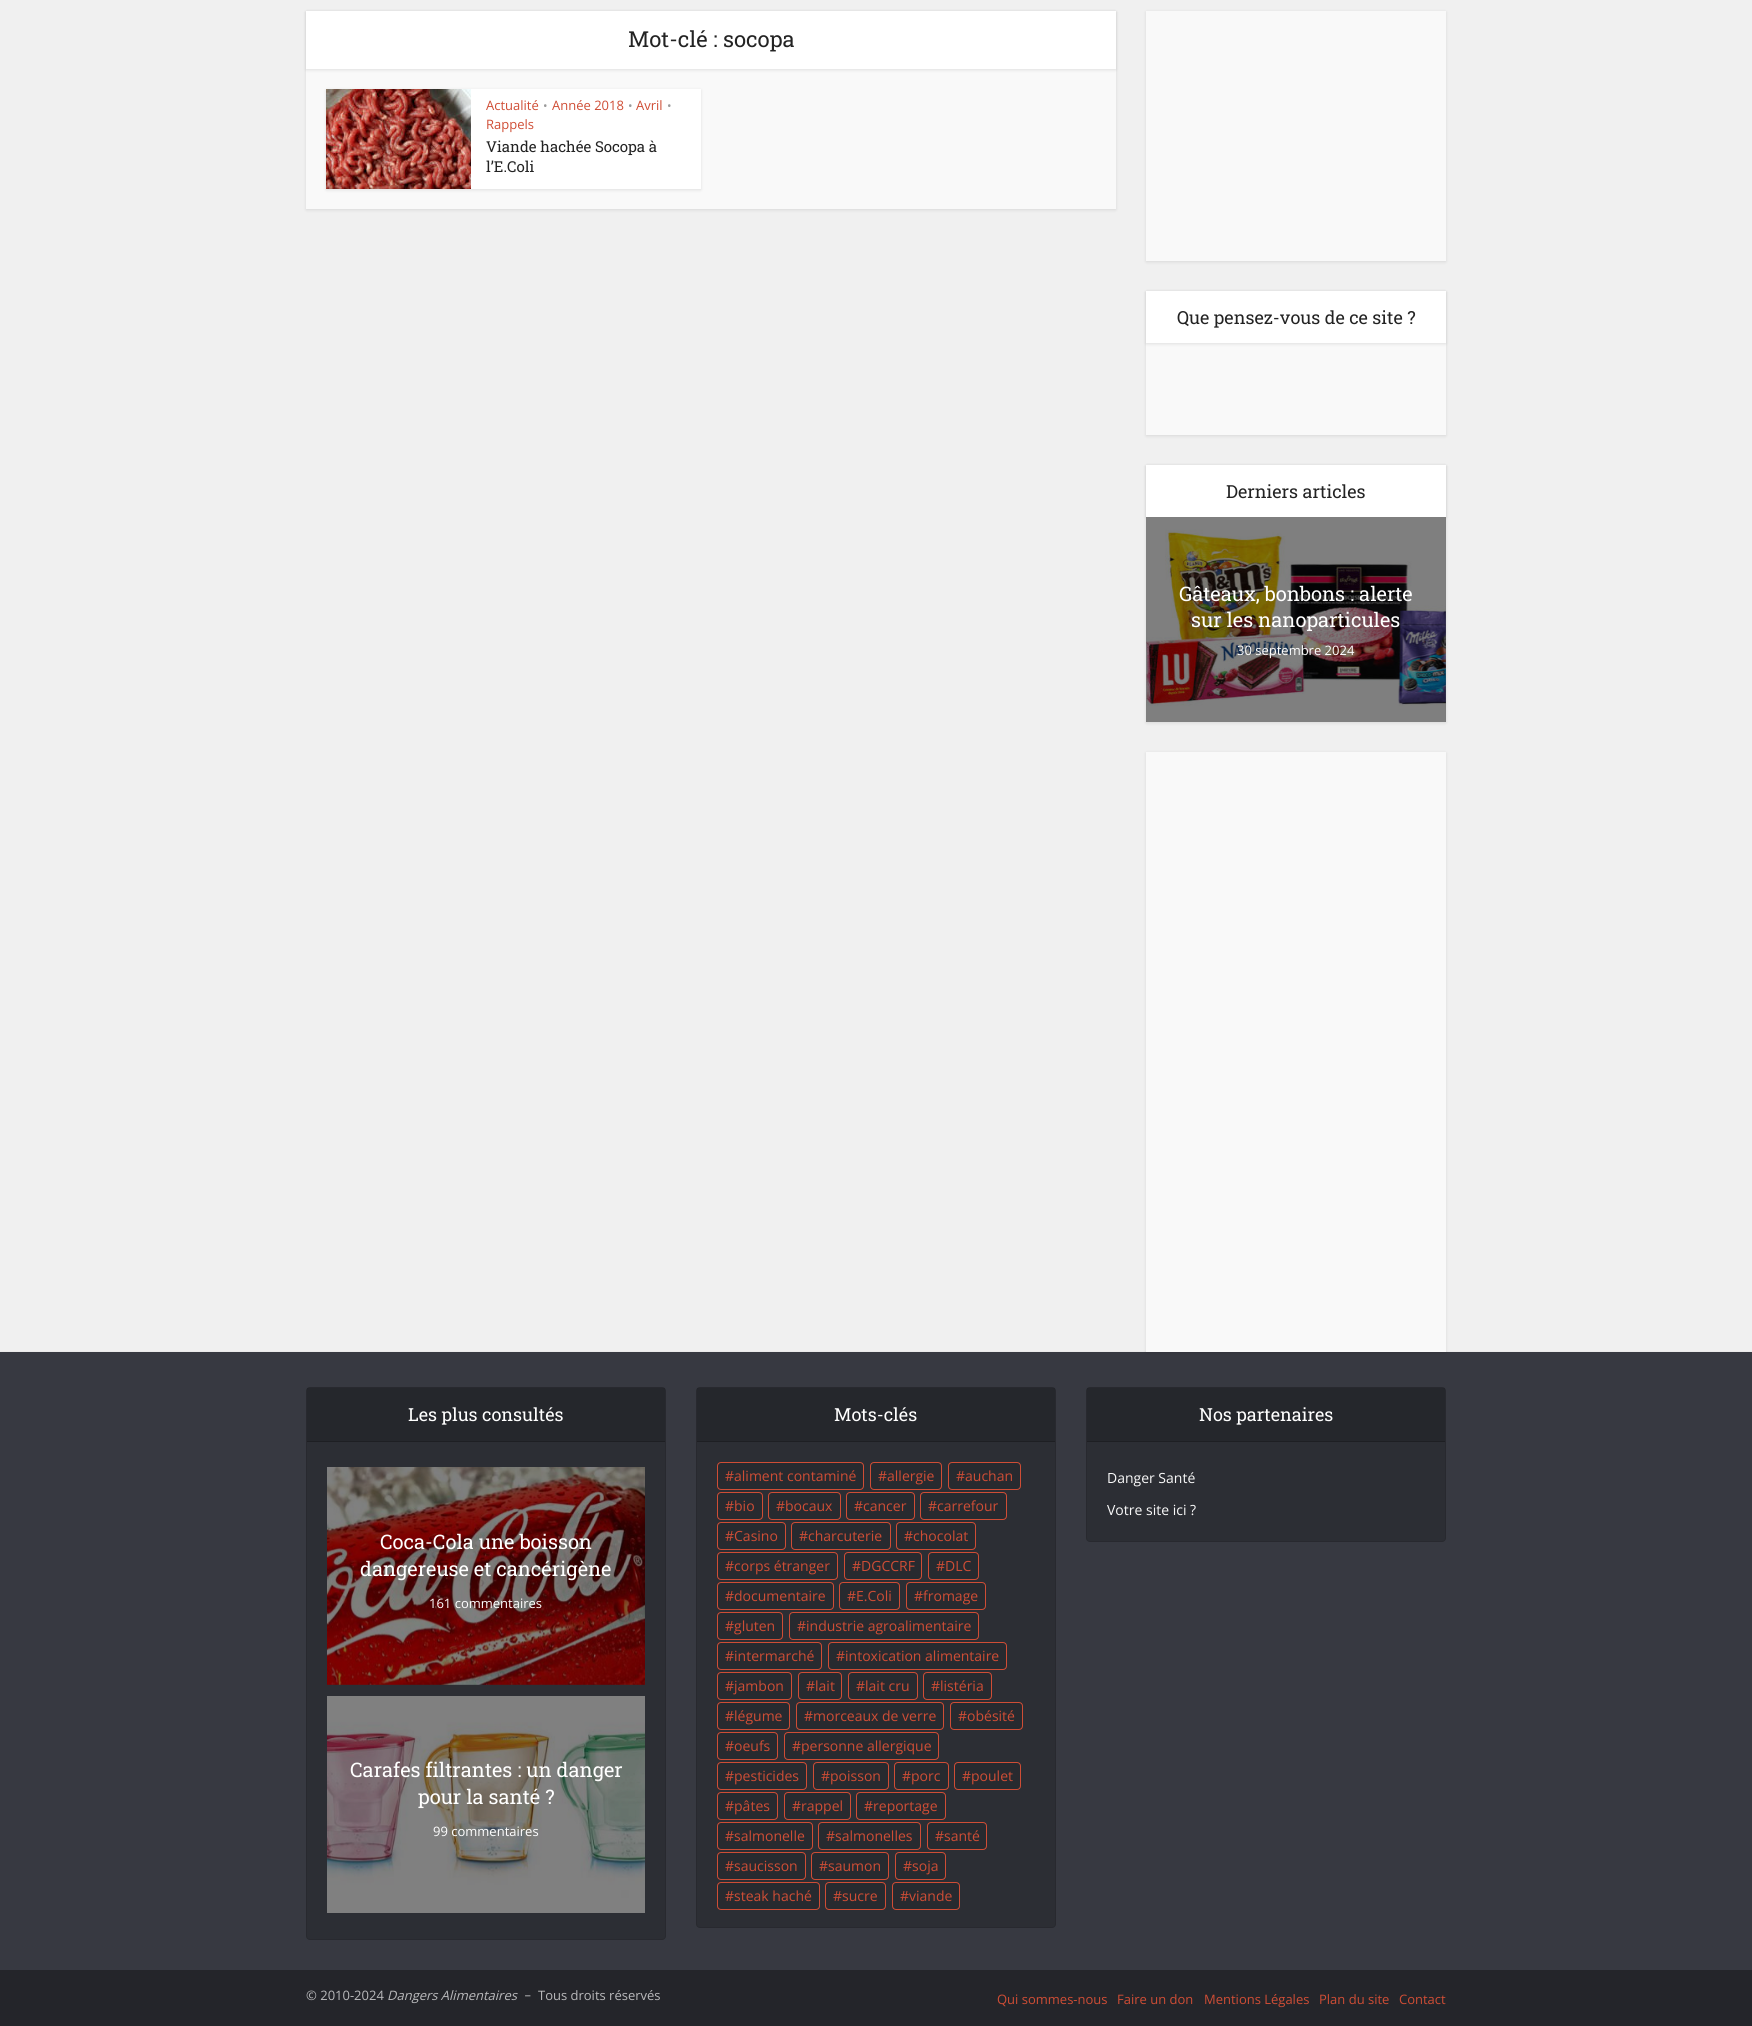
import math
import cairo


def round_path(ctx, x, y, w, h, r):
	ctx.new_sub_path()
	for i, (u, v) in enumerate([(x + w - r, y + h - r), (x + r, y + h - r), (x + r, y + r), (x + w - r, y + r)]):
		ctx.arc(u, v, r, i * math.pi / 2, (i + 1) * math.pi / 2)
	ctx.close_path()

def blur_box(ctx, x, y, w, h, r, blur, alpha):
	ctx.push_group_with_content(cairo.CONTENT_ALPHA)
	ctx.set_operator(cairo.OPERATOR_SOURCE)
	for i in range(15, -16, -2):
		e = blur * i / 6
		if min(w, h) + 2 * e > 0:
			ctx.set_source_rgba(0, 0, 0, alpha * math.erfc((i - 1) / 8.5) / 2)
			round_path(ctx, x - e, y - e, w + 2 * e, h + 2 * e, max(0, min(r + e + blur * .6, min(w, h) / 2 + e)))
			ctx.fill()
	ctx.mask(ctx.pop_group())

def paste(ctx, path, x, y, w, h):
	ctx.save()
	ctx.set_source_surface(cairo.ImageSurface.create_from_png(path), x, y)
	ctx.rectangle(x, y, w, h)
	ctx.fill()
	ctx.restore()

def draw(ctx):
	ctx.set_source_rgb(0.941, 0.941, 0.941)
	ctx.paint()
	ctx.set_source_rgb(0, 0, 0)
	blur_box(ctx, 306, 12, 810, 198, 0, 1.5, 0.1)
	ctx.set_source_rgb(0.976, 0.976, 0.976)
	ctx.rectangle(306, 69, 810, 140)
	ctx.fill()
	ctx.set_source_rgb(0, 0, 0)
	blur_box(ctx, 306, 12, 810, 58, 0, 1.5, 0.1)
	ctx.set_source_rgb(1, 1, 1)
	ctx.rectangle(306, 11, 810, 58)
	ctx.fill()
	ctx.select_font_face('Roboto Slab')
	ctx.set_font_size(22)
	ctx.set_source_rgb(0.137, 0.137, 0.137)
	ctx.move_to(628, 47)
	ctx.show_text('Mot-clé : socopa')
	ctx.set_source_rgb(0, 0, 0)
	blur_box(ctx, 326, 90, 375, 100, 0, 1.5, 0.1)
	ctx.set_source_rgb(1, 1, 1)
	ctx.rectangle(471, 89, 230, 100)
	ctx.fill()
	paste(ctx, 'media/1.png', 326, 89, 145, 100)
	ctx.select_font_face('Open Sans')
	ctx.set_font_size(13)
	ctx.set_source_rgb(0.812, 0.302, 0.208)
	ctx.move_to(486, 110)
	ctx.show_text('Actualité')
	ctx.set_font_size(12)
	ctx.set_source_rgb(0.608, 0.608, 0.608)
	ctx.move_to(543, 110)
	ctx.show_text('•')
	ctx.set_font_size(13)
	ctx.set_source_rgb(0.812, 0.302, 0.208)
	ctx.move_to(552, 110)
	ctx.show_text('Année 2018')
	ctx.set_font_size(12)
	ctx.set_source_rgb(0.608, 0.608, 0.608)
	ctx.move_to(628, 110)
	ctx.show_text('•')
	ctx.set_font_size(13)
	ctx.set_source_rgb(0.812, 0.302, 0.208)
	ctx.move_to(636, 110)
	ctx.show_text('Avril')
	ctx.set_font_size(12)
	ctx.set_source_rgb(0.608, 0.608, 0.608)
	ctx.move_to(667, 110)
	ctx.show_text('•')
	ctx.set_font_size(13)
	ctx.set_source_rgb(0.812, 0.302, 0.208)
	ctx.move_to(486, 129)
	ctx.show_text('Rappels')
	ctx.select_font_face('Roboto Slab')
	ctx.set_font_size(15)
	ctx.set_source_rgb(0.137, 0.137, 0.137)
	ctx.move_to(486, 152)
	ctx.show_text('Viande hachée Socopa à')
	ctx.move_to(486, 172)
	ctx.show_text('l’E.Coli')
	ctx.set_source_rgb(0, 0, 0)
	blur_box(ctx, 1146, 12, 300, 250, 0, 1.5, 0.1)
	ctx.set_source_rgb(0.976, 0.976, 0.976)
	ctx.rectangle(1146, 11, 300, 250)
	ctx.fill()
	ctx.set_source_rgb(0, 0, 0)
	blur_box(ctx, 1146, 292, 300, 144, 0, 1.5, 0.1)
	ctx.set_source_rgb(0.976, 0.976, 0.976)
	ctx.rectangle(1146, 343, 300, 92)
	ctx.fill()
	ctx.set_source_rgb(0, 0, 0)
	blur_box(ctx, 1146, 292, 300, 52, 0, 1.5, 0.1)
	ctx.set_source_rgb(1, 1, 1)
	ctx.rectangle(1146, 291, 300, 52)
	ctx.fill()
	ctx.set_font_size(18)
	ctx.set_source_rgb(0.137, 0.137, 0.137)
	ctx.move_to(1177, 324)
	ctx.show_text('Que pensez-vous de ce site ?')
	ctx.set_source_rgb(0, 0, 0)
	blur_box(ctx, 1146, 466, 300, 257, 0, 1.5, 0.1)
	blur_box(ctx, 1146, 466, 300, 52, 0, 1.5, 0.1)
	ctx.set_source_rgb(1, 1, 1)
	ctx.rectangle(1146, 465, 300, 52)
	ctx.fill()
	ctx.set_source_rgb(0.137, 0.137, 0.137)
	ctx.move_to(1226, 498)
	ctx.show_text('Derniers articles')
	paste(ctx, 'media/2.png', 1146, 517, 300, 205)
	ctx.set_source_rgba(0, 0, 0, 0.5)
	ctx.rectangle(1146, 517, 300, 205)
	ctx.fill()
	ctx.set_font_size(20)
	ctx.set_source_rgb(1, 1, 1)
	ctx.move_to(1179, 601)
	ctx.show_text('Gâteaux, bonbons : alerte')
	ctx.move_to(1191, 627)
	ctx.show_text('sur les nanoparticules')
	ctx.select_font_face('Open Sans')
	ctx.set_font_size(13)
	ctx.move_to(1237, 655)
	ctx.show_text('30 septembre 2024')
	ctx.set_source_rgb(0, 0, 0)
	blur_box(ctx, 0, 1354, 1752, 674, 0, 2, 0.2)
	ctx.set_source_rgb(0.216, 0.224, 0.255)
	ctx.rectangle(0, 1352, 1752, 618)
	ctx.fill()
	ctx.set_source_rgb(0, 0, 0)
	blur_box(ctx, 1146, 753, 300, 600, 0, 1.5, 0.1)
	ctx.set_source_rgb(0.976, 0.976, 0.976)
	ctx.rectangle(1146, 752, 300, 600)
	ctx.fill()
	ctx.set_source_rgb(0.173, 0.18, 0.204)
	round_path(ctx, 306, 1387, 360, 553, 4)
	ctx.fill()
	round_path(ctx, 306.5, 1387.5, 359, 552, 3.5)
	ctx.set_source_rgba(0, 0, 0, 0.1)
	ctx.set_line_width(1)
	ctx.stroke()
	ctx.set_source_rgba(0, 0, 0, 0.15)
	ctx.rectangle(307, 1388, 358, 53)
	ctx.fill()
	ctx.set_source_rgb(0.118, 0.122, 0.137)
	ctx.rectangle(307, 1441, 358, 1)
	ctx.fill()
	ctx.select_font_face('Roboto Slab')
	ctx.set_font_size(18)
	ctx.set_source_rgb(1, 1, 1)
	ctx.move_to(408, 1421)
	ctx.show_text('Les plus consultés')
	paste(ctx, 'media/3.png', 327, 1467, 318, 218)
	ctx.set_font_size(20)
	ctx.move_to(380, 1549)
	ctx.show_text('Coca-Cola une boisson')
	ctx.move_to(360, 1576)
	ctx.show_text('dangereuse et cancérigène')
	ctx.select_font_face('Open Sans')
	ctx.set_font_size(13)
	ctx.move_to(429, 1608)
	ctx.show_text('161 commentaires')
	paste(ctx, 'media/4.png', 327, 1696, 318, 217)
	ctx.select_font_face('Roboto Slab')
	ctx.set_font_size(20)
	ctx.move_to(350, 1777)
	ctx.show_text('Carafes filtrantes : un danger')
	ctx.move_to(418, 1804)
	ctx.show_text('pour la santé ?')
	ctx.select_font_face('Open Sans')
	ctx.set_font_size(13)
	ctx.move_to(433, 1836)
	ctx.show_text('99 commentaires')
	ctx.set_source_rgb(0.173, 0.18, 0.204)
	round_path(ctx, 696, 1387, 360, 541, 4)
	ctx.fill()
	round_path(ctx, 696.5, 1387.5, 359, 540, 3.5)
	ctx.set_source_rgba(0, 0, 0, 0.1)
	ctx.stroke()
	ctx.set_source_rgba(0, 0, 0, 0.15)
	ctx.rectangle(697, 1388, 358, 53)
	ctx.fill()
	ctx.set_source_rgb(0.118, 0.122, 0.137)
	ctx.rectangle(697, 1441, 358, 1)
	ctx.fill()
	ctx.select_font_face('Roboto Slab')
	ctx.set_font_size(18)
	ctx.set_source_rgb(1, 1, 1)
	ctx.move_to(834, 1421)
	ctx.show_text('Mots-clés')
	ctx.set_source_rgb(0.157, 0.165, 0.184)
	round_path(ctx, 717.5, 1462.5, 146, 27, 3.5)
	ctx.fill_preserve()
	ctx.set_source_rgb(0.812, 0.302, 0.208)
	ctx.stroke()
	ctx.select_font_face('Open Sans')
	ctx.set_font_size(14)
	ctx.move_to(725, 1481)
	ctx.show_text('#aliment contaminé')
	ctx.set_source_rgb(0.157, 0.165, 0.184)
	round_path(ctx, 870.5, 1462.5, 71, 27, 3.5)
	ctx.fill_preserve()
	ctx.set_source_rgb(0.812, 0.302, 0.208)
	ctx.stroke()
	ctx.move_to(878, 1481)
	ctx.show_text('#allergie')
	ctx.set_source_rgb(0.157, 0.165, 0.184)
	round_path(ctx, 948.5, 1462.5, 72, 27, 3.5)
	ctx.fill_preserve()
	ctx.set_source_rgb(0.812, 0.302, 0.208)
	ctx.stroke()
	ctx.move_to(956, 1481)
	ctx.show_text('#auchan')
	ctx.set_source_rgb(0.157, 0.165, 0.184)
	round_path(ctx, 717.5, 1492.5, 45, 27, 3.5)
	ctx.fill_preserve()
	ctx.set_source_rgb(0.812, 0.302, 0.208)
	ctx.stroke()
	ctx.move_to(725, 1511)
	ctx.show_text('#bio')
	ctx.set_source_rgb(0.157, 0.165, 0.184)
	round_path(ctx, 768.5, 1492.5, 72, 27, 3.5)
	ctx.fill_preserve()
	ctx.set_source_rgb(0.812, 0.302, 0.208)
	ctx.stroke()
	ctx.move_to(776, 1511)
	ctx.show_text('#bocaux')
	ctx.set_source_rgb(0.157, 0.165, 0.184)
	round_path(ctx, 846.5, 1492.5, 68, 27, 3.5)
	ctx.fill_preserve()
	ctx.set_source_rgb(0.812, 0.302, 0.208)
	ctx.stroke()
	ctx.move_to(854, 1511)
	ctx.show_text('#cancer')
	ctx.set_source_rgb(0.157, 0.165, 0.184)
	round_path(ctx, 920.5, 1492.5, 86, 27, 3.5)
	ctx.fill_preserve()
	ctx.set_source_rgb(0.812, 0.302, 0.208)
	ctx.stroke()
	ctx.move_to(928, 1511)
	ctx.show_text('#carrefour')
	ctx.set_source_rgb(0.157, 0.165, 0.184)
	round_path(ctx, 717.5, 1522.5, 68, 27, 3.5)
	ctx.fill_preserve()
	ctx.set_source_rgb(0.812, 0.302, 0.208)
	ctx.stroke()
	ctx.move_to(725, 1541)
	ctx.show_text('#Casino')
	ctx.set_source_rgb(0.157, 0.165, 0.184)
	round_path(ctx, 791.5, 1522.5, 99, 27, 3.5)
	ctx.fill_preserve()
	ctx.set_source_rgb(0.812, 0.302, 0.208)
	ctx.stroke()
	ctx.move_to(799, 1541)
	ctx.show_text('#charcuterie')
	ctx.set_source_rgb(0.157, 0.165, 0.184)
	round_path(ctx, 896.5, 1522.5, 79, 27, 3.5)
	ctx.fill_preserve()
	ctx.set_source_rgb(0.812, 0.302, 0.208)
	ctx.stroke()
	ctx.move_to(904, 1541)
	ctx.show_text('#chocolat')
	ctx.set_source_rgb(0.157, 0.165, 0.184)
	round_path(ctx, 717.5, 1552.5, 120, 27, 3.5)
	ctx.fill_preserve()
	ctx.set_source_rgb(0.812, 0.302, 0.208)
	ctx.stroke()
	ctx.move_to(725, 1571)
	ctx.show_text('#corps étranger')
	ctx.set_source_rgb(0.157, 0.165, 0.184)
	round_path(ctx, 844.5, 1552.5, 77, 27, 3.5)
	ctx.fill_preserve()
	ctx.set_source_rgb(0.812, 0.302, 0.208)
	ctx.stroke()
	ctx.move_to(852, 1571)
	ctx.show_text('#DGCCRF')
	ctx.set_source_rgb(0.157, 0.165, 0.184)
	round_path(ctx, 928.5, 1552.5, 50, 27, 3.5)
	ctx.fill_preserve()
	ctx.set_source_rgb(0.812, 0.302, 0.208)
	ctx.stroke()
	ctx.move_to(936, 1571)
	ctx.show_text('#DLC')
	ctx.set_source_rgb(0.157, 0.165, 0.184)
	round_path(ctx, 717.5, 1582.5, 116, 27, 3.5)
	ctx.fill_preserve()
	ctx.set_source_rgb(0.812, 0.302, 0.208)
	ctx.stroke()
	ctx.move_to(725, 1601)
	ctx.show_text('#documentaire')
	ctx.set_source_rgb(0.157, 0.165, 0.184)
	round_path(ctx, 839.5, 1582.5, 60, 27, 3.5)
	ctx.fill_preserve()
	ctx.set_source_rgb(0.812, 0.302, 0.208)
	ctx.stroke()
	ctx.move_to(847, 1601)
	ctx.show_text('#E.Coli')
	ctx.set_source_rgb(0.157, 0.165, 0.184)
	round_path(ctx, 906.5, 1582.5, 79, 27, 3.5)
	ctx.fill_preserve()
	ctx.set_source_rgb(0.812, 0.302, 0.208)
	ctx.stroke()
	ctx.move_to(914, 1601)
	ctx.show_text('#fromage')
	ctx.set_source_rgb(0.157, 0.165, 0.184)
	round_path(ctx, 717.5, 1612.5, 65, 27, 3.5)
	ctx.fill_preserve()
	ctx.set_source_rgb(0.812, 0.302, 0.208)
	ctx.stroke()
	ctx.move_to(725, 1631)
	ctx.show_text('#gluten')
	ctx.set_source_rgb(0.157, 0.165, 0.184)
	round_path(ctx, 789.5, 1612.5, 189, 27, 3.5)
	ctx.fill_preserve()
	ctx.set_source_rgb(0.812, 0.302, 0.208)
	ctx.stroke()
	ctx.move_to(797, 1631)
	ctx.show_text('#industrie agroalimentaire')
	ctx.set_source_rgb(0.157, 0.165, 0.184)
	round_path(ctx, 717.5, 1642.5, 104, 27, 3.5)
	ctx.fill_preserve()
	ctx.set_source_rgb(0.812, 0.302, 0.208)
	ctx.stroke()
	ctx.move_to(725, 1661)
	ctx.show_text('#intermarché')
	ctx.set_source_rgb(0.157, 0.165, 0.184)
	round_path(ctx, 828.5, 1642.5, 178, 27, 3.5)
	ctx.fill_preserve()
	ctx.set_source_rgb(0.812, 0.302, 0.208)
	ctx.stroke()
	ctx.move_to(836, 1661)
	ctx.show_text('#intoxication alimentaire')
	ctx.set_source_rgb(0.157, 0.165, 0.184)
	round_path(ctx, 717.5, 1672.5, 74, 27, 3.5)
	ctx.fill_preserve()
	ctx.set_source_rgb(0.812, 0.302, 0.208)
	ctx.stroke()
	ctx.move_to(725, 1691)
	ctx.show_text('#jambon')
	ctx.set_source_rgb(0.157, 0.165, 0.184)
	round_path(ctx, 798.5, 1672.5, 43, 27, 3.5)
	ctx.fill_preserve()
	ctx.set_source_rgb(0.812, 0.302, 0.208)
	ctx.stroke()
	ctx.move_to(806, 1691)
	ctx.show_text('#lait')
	ctx.set_source_rgb(0.157, 0.165, 0.184)
	round_path(ctx, 848.5, 1672.5, 69, 27, 3.5)
	ctx.fill_preserve()
	ctx.set_source_rgb(0.812, 0.302, 0.208)
	ctx.stroke()
	ctx.move_to(856, 1691)
	ctx.show_text('#lait cru')
	ctx.set_source_rgb(0.157, 0.165, 0.184)
	round_path(ctx, 923.5, 1672.5, 68, 27, 3.5)
	ctx.fill_preserve()
	ctx.set_source_rgb(0.812, 0.302, 0.208)
	ctx.stroke()
	ctx.move_to(931, 1691)
	ctx.show_text('#listéria')
	ctx.set_source_rgb(0.157, 0.165, 0.184)
	round_path(ctx, 717.5, 1702.5, 72, 27, 3.5)
	ctx.fill_preserve()
	ctx.set_source_rgb(0.812, 0.302, 0.208)
	ctx.stroke()
	ctx.move_to(725, 1721)
	ctx.show_text('#légume')
	ctx.set_source_rgb(0.157, 0.165, 0.184)
	round_path(ctx, 796.5, 1702.5, 147, 27, 3.5)
	ctx.fill_preserve()
	ctx.set_source_rgb(0.812, 0.302, 0.208)
	ctx.stroke()
	ctx.move_to(804, 1721)
	ctx.show_text('#morceaux de verre')
	ctx.set_source_rgb(0.157, 0.165, 0.184)
	round_path(ctx, 950.5, 1702.5, 72, 27, 3.5)
	ctx.fill_preserve()
	ctx.set_source_rgb(0.812, 0.302, 0.208)
	ctx.stroke()
	ctx.move_to(958, 1721)
	ctx.show_text('#obésité')
	ctx.set_source_rgb(0.157, 0.165, 0.184)
	round_path(ctx, 717.5, 1732.5, 60, 27, 3.5)
	ctx.fill_preserve()
	ctx.set_source_rgb(0.812, 0.302, 0.208)
	ctx.stroke()
	ctx.move_to(725, 1751)
	ctx.show_text('#oeufs')
	ctx.set_source_rgb(0.157, 0.165, 0.184)
	round_path(ctx, 784.5, 1732.5, 154, 27, 3.5)
	ctx.fill_preserve()
	ctx.set_source_rgb(0.812, 0.302, 0.208)
	ctx.stroke()
	ctx.move_to(792, 1751)
	ctx.show_text('#personne allergique')
	ctx.set_source_rgb(0.157, 0.165, 0.184)
	round_path(ctx, 717.5, 1762.5, 89, 27, 3.5)
	ctx.fill_preserve()
	ctx.set_source_rgb(0.812, 0.302, 0.208)
	ctx.stroke()
	ctx.move_to(725, 1781)
	ctx.show_text('#pesticides')
	ctx.set_source_rgb(0.157, 0.165, 0.184)
	round_path(ctx, 813.5, 1762.5, 75, 27, 3.5)
	ctx.fill_preserve()
	ctx.set_source_rgb(0.812, 0.302, 0.208)
	ctx.stroke()
	ctx.move_to(821, 1781)
	ctx.show_text('#poisson')
	ctx.set_source_rgb(0.157, 0.165, 0.184)
	round_path(ctx, 894.5, 1762.5, 54, 27, 3.5)
	ctx.fill_preserve()
	ctx.set_source_rgb(0.812, 0.302, 0.208)
	ctx.stroke()
	ctx.move_to(902, 1781)
	ctx.show_text('#porc')
	ctx.set_source_rgb(0.157, 0.165, 0.184)
	round_path(ctx, 954.5, 1762.5, 66, 27, 3.5)
	ctx.fill_preserve()
	ctx.set_source_rgb(0.812, 0.302, 0.208)
	ctx.stroke()
	ctx.move_to(962, 1781)
	ctx.show_text('#poulet')
	ctx.set_source_rgb(0.157, 0.165, 0.184)
	round_path(ctx, 717.5, 1792.5, 60, 27, 3.5)
	ctx.fill_preserve()
	ctx.set_source_rgb(0.812, 0.302, 0.208)
	ctx.stroke()
	ctx.move_to(725, 1811)
	ctx.show_text('#pâtes')
	ctx.set_source_rgb(0.157, 0.165, 0.184)
	round_path(ctx, 784.5, 1792.5, 66, 27, 3.5)
	ctx.fill_preserve()
	ctx.set_source_rgb(0.812, 0.302, 0.208)
	ctx.stroke()
	ctx.move_to(792, 1811)
	ctx.show_text('#rappel')
	ctx.set_source_rgb(0.157, 0.165, 0.184)
	round_path(ctx, 856.5, 1792.5, 89, 27, 3.5)
	ctx.fill_preserve()
	ctx.set_source_rgb(0.812, 0.302, 0.208)
	ctx.stroke()
	ctx.move_to(864, 1811)
	ctx.show_text('#reportage')
	ctx.set_source_rgb(0.157, 0.165, 0.184)
	round_path(ctx, 717.5, 1822.5, 95, 27, 3.5)
	ctx.fill_preserve()
	ctx.set_source_rgb(0.812, 0.302, 0.208)
	ctx.stroke()
	ctx.move_to(725, 1841)
	ctx.show_text('#salmonelle')
	ctx.set_source_rgb(0.157, 0.165, 0.184)
	round_path(ctx, 818.5, 1822.5, 102, 27, 3.5)
	ctx.fill_preserve()
	ctx.set_source_rgb(0.812, 0.302, 0.208)
	ctx.stroke()
	ctx.move_to(826, 1841)
	ctx.show_text('#salmonelles')
	ctx.set_source_rgb(0.157, 0.165, 0.184)
	round_path(ctx, 927.5, 1822.5, 59, 27, 3.5)
	ctx.fill_preserve()
	ctx.set_source_rgb(0.812, 0.302, 0.208)
	ctx.stroke()
	ctx.move_to(935, 1841)
	ctx.show_text('#santé')
	ctx.set_source_rgb(0.157, 0.165, 0.184)
	round_path(ctx, 717.5, 1852.5, 88, 27, 3.5)
	ctx.fill_preserve()
	ctx.set_source_rgb(0.812, 0.302, 0.208)
	ctx.stroke()
	ctx.move_to(725, 1871)
	ctx.show_text('#saucisson')
	ctx.set_source_rgb(0.157, 0.165, 0.184)
	round_path(ctx, 811.5, 1852.5, 77, 27, 3.5)
	ctx.fill_preserve()
	ctx.set_source_rgb(0.812, 0.302, 0.208)
	ctx.stroke()
	ctx.move_to(819, 1871)
	ctx.show_text('#saumon')
	ctx.set_source_rgb(0.157, 0.165, 0.184)
	round_path(ctx, 895.5, 1852.5, 50, 27, 3.5)
	ctx.fill_preserve()
	ctx.set_source_rgb(0.812, 0.302, 0.208)
	ctx.stroke()
	ctx.move_to(903, 1871)
	ctx.show_text('#soja')
	ctx.set_source_rgb(0.157, 0.165, 0.184)
	round_path(ctx, 717.5, 1882.5, 102, 27, 3.5)
	ctx.fill_preserve()
	ctx.set_source_rgb(0.812, 0.302, 0.208)
	ctx.stroke()
	ctx.move_to(725, 1901)
	ctx.show_text('#steak haché')
	ctx.set_source_rgb(0.157, 0.165, 0.184)
	round_path(ctx, 825.5, 1882.5, 60, 27, 3.5)
	ctx.fill_preserve()
	ctx.set_source_rgb(0.812, 0.302, 0.208)
	ctx.stroke()
	ctx.move_to(833, 1901)
	ctx.show_text('#sucre')
	ctx.set_source_rgb(0.157, 0.165, 0.184)
	round_path(ctx, 892.5, 1882.5, 67, 27, 3.5)
	ctx.fill_preserve()
	ctx.set_source_rgb(0.812, 0.302, 0.208)
	ctx.stroke()
	ctx.move_to(900, 1901)
	ctx.show_text('#viande')
	ctx.set_source_rgb(0.173, 0.18, 0.204)
	round_path(ctx, 1086, 1387, 360, 155, 4)
	ctx.fill()
	round_path(ctx, 1086.5, 1387.5, 359, 154, 3.5)
	ctx.set_source_rgba(0, 0, 0, 0.1)
	ctx.stroke()
	ctx.set_source_rgba(0, 0, 0, 0.15)
	ctx.rectangle(1087, 1388, 358, 53)
	ctx.fill()
	ctx.set_source_rgb(0.118, 0.122, 0.137)
	ctx.rectangle(1087, 1441, 358, 1)
	ctx.fill()
	ctx.select_font_face('Roboto Slab')
	ctx.set_font_size(18)
	ctx.set_source_rgb(1, 1, 1)
	ctx.move_to(1199, 1421)
	ctx.show_text('Nos partenaires')
	ctx.select_font_face('Open Sans')
	ctx.set_font_size(14)
	ctx.set_source_rgb(0.976, 0.976, 0.976)
	ctx.move_to(1107, 1483)
	ctx.show_text('Danger Santé')
	ctx.move_to(1107, 1515)
	ctx.show_text('Votre site ici ?')
	ctx.set_source_rgb(0.141, 0.145, 0.165)
	ctx.rectangle(0, 1970, 1752, 56)
	ctx.fill()
	ctx.set_font_size(13)
	ctx.set_source_rgb(0.725, 0.725, 0.733)
	ctx.move_to(306, 2000)
	ctx.show_text('© 2010-2024')
	ctx.select_font_face('Open Sans', cairo.FONT_SLANT_ITALIC)
	ctx.move_to(387, 2000)
	ctx.show_text('Dangers Alimentaires')
	ctx.select_font_face('Carlito')
	ctx.set_font_size(15)
	ctx.move_to(524, 2000)
	ctx.show_text('–')
	ctx.select_font_face('Open Sans')
	ctx.set_font_size(13)
	ctx.move_to(538, 2000)
	ctx.show_text('Tous droits réservés')
	ctx.set_source_rgb(0.812, 0.302, 0.208)
	for x, y, s in [
		(997, 2004, 'Qui sommes-nous'),
		(1117, 2004, 'Faire un don'),
		(1204, 2004, 'Mentions Légales'),
		(1319, 2004, 'Plan du site'),
		(1399, 2004, 'Contact'),
	]:
		ctx.move_to(x, y)
		ctx.show_text(s)


surface = cairo.ImageSurface(cairo.FORMAT_RGB24, 1752, 2026)
ctx = cairo.Context(surface)
options = cairo.FontOptions()
options.set_hint_metrics(cairo.HINT_METRICS_OFF)
options.set_hint_style(cairo.HINT_STYLE_NONE)
ctx.set_font_options(options)
ctx.set_miter_limit(4)
draw(ctx)
surface.write_to_png('image.png')
